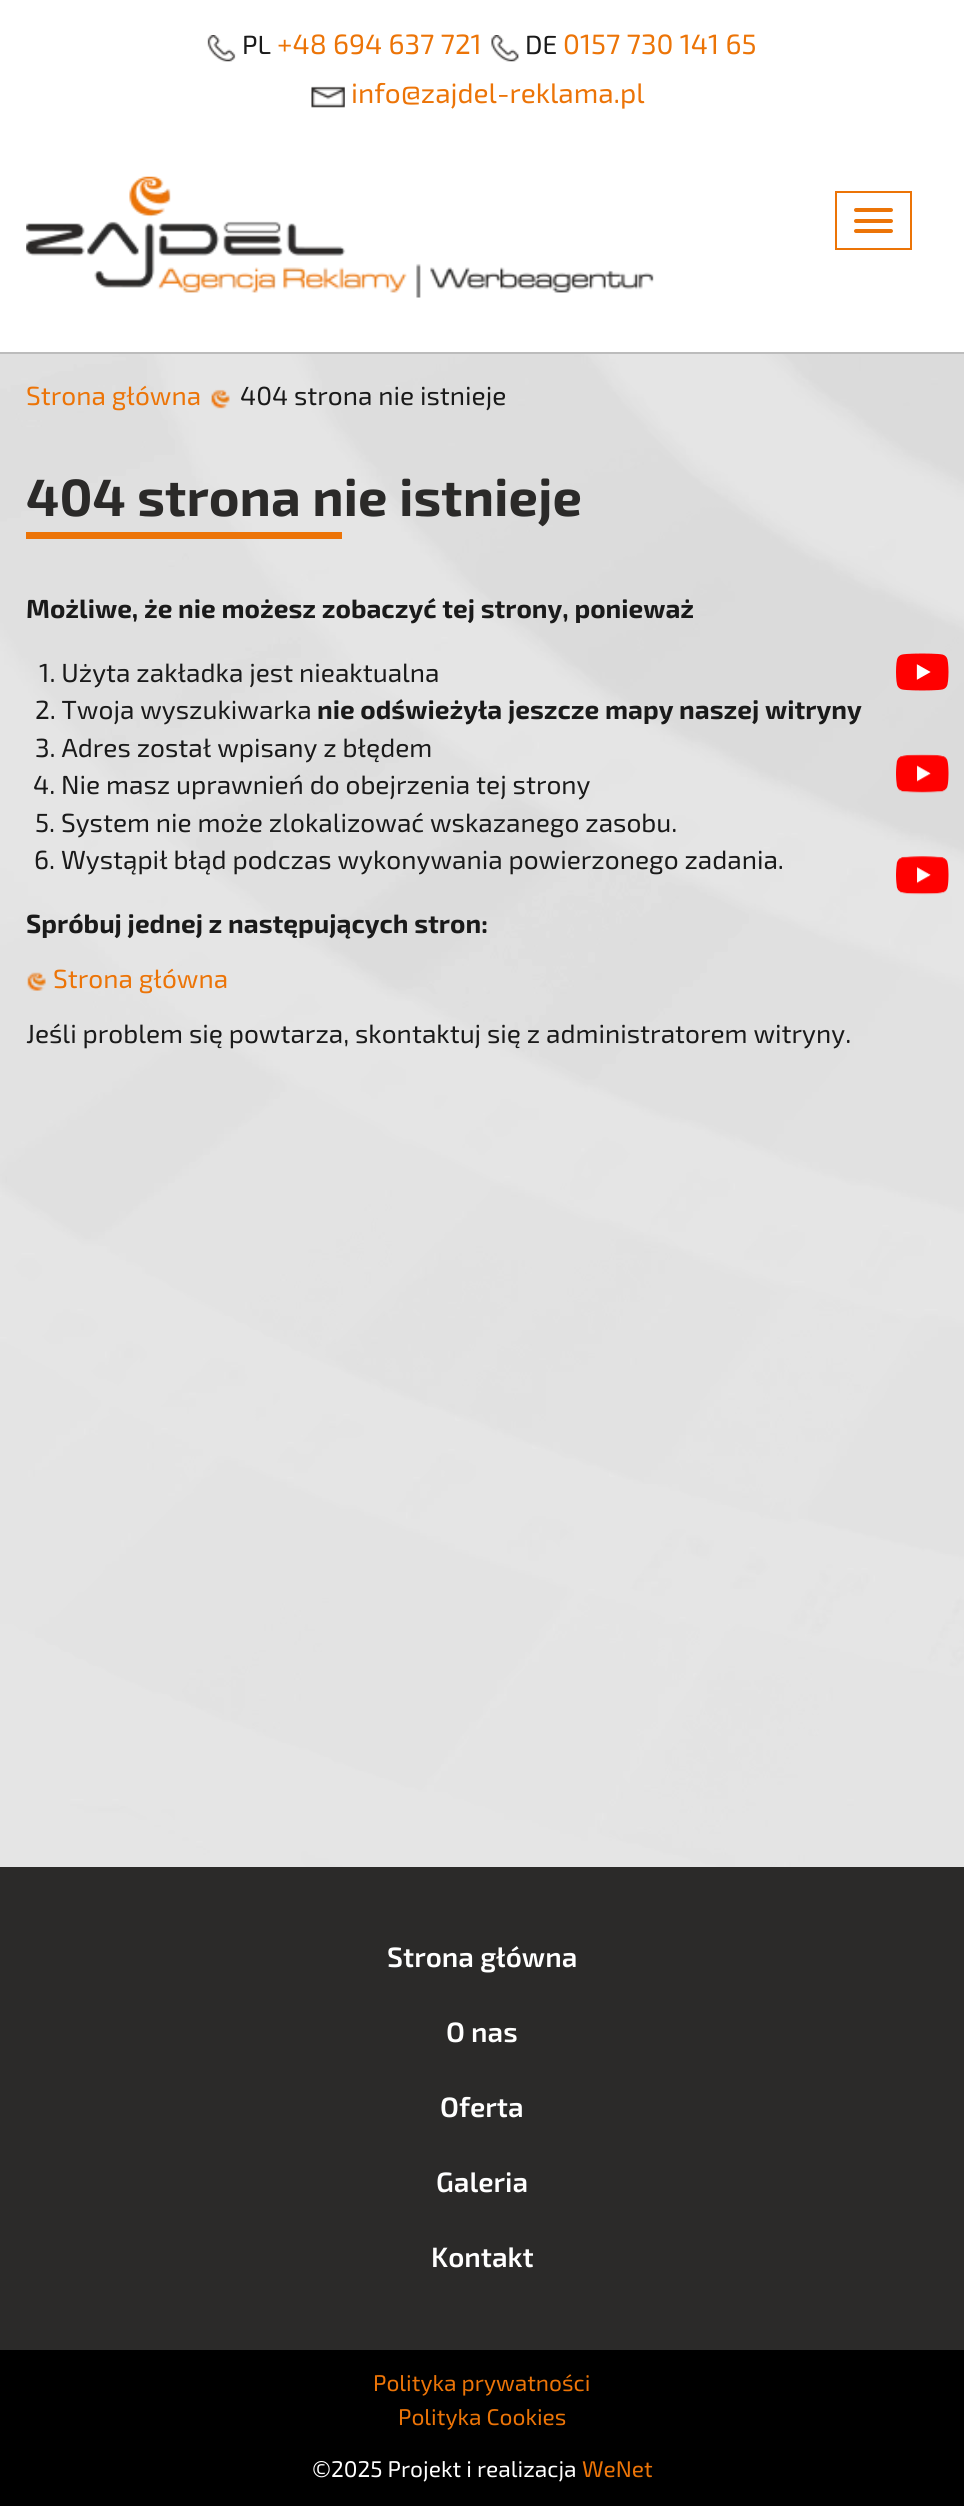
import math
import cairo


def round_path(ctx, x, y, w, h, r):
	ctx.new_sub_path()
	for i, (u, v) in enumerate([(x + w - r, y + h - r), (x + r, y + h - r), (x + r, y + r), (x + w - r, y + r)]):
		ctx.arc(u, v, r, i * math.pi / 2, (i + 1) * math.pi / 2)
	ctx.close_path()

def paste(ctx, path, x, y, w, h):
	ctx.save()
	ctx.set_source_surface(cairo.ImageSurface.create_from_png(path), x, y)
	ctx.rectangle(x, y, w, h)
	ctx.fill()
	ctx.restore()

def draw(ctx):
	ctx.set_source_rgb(1, 1, 1)
	ctx.paint()
	paste(ctx, 'media/1.png', 0, 354, 964, 1513)
	ctx.set_source_rgb(0.737, 0.737, 0.737)
	ctx.rectangle(0, 352, 964, 2)
	ctx.fill()
	paste(ctx, 'media/2.png', 207, 35, 29, 27)
	ctx.select_font_face('Exo 2')
	ctx.set_font_size(26.25)
	ctx.set_source_rgb(0.102, 0.102, 0.102)
	ctx.move_to(242, 54)
	ctx.show_text('PL')
	ctx.set_font_size(28)
	ctx.set_source_rgb(0.925, 0.455, 0.031)
	ctx.move_to(277, 54)
	ctx.show_text('+48 694 637 721')
	paste(ctx, 'media/3.png', 491, 35, 28, 27)
	ctx.set_font_size(26.25)
	ctx.set_source_rgb(0.102, 0.102, 0.102)
	ctx.move_to(525, 54)
	ctx.show_text('DE')
	ctx.set_font_size(28)
	ctx.set_source_rgb(0.925, 0.455, 0.031)
	ctx.move_to(563, 54)
	ctx.show_text('0157 730 141 65')
	paste(ctx, 'media/4.png', 311, 86, 34, 22)
	ctx.move_to(351, 103)
	ctx.show_text('info@zajdel-reklama.pl')
	paste(ctx, 'media/5.png', 26, 176, 628, 122)
	ctx.rectangle(836, 192, 75, 57)
	ctx.stroke()
	round_path(ctx, 854, 208, 39, 4, 2)
	ctx.fill()
	round_path(ctx, 854, 219, 39, 4, 2)
	ctx.fill()
	round_path(ctx, 854, 229, 39, 4, 2)
	ctx.fill()
	ctx.set_font_size(26.25)
	ctx.move_to(26, 405)
	ctx.show_text('Strona główna')
	paste(ctx, 'media/6.png', 211, 389, 19, 20)
	ctx.set_source_rgb(0.102, 0.102, 0.102)
	ctx.move_to(240, 405)
	ctx.show_text('404 strona nie istnieje')
	ctx.set_source_rgb(0.922, 0.455, 0.035)
	ctx.rectangle(26, 532, 316, 7)
	ctx.fill()
	ctx.select_font_face('Exo 2', cairo.FONT_SLANT_NORMAL, cairo.FONT_WEIGHT_BOLD)
	ctx.set_font_size(52.5)
	ctx.set_source_rgb(0.169, 0.165, 0.161)
	ctx.move_to(26, 516)
	ctx.show_text('404 strona nie istnieje')
	ctx.set_font_size(26.25)
	ctx.set_source_rgb(0.102, 0.102, 0.102)
	ctx.move_to(26, 618)
	ctx.show_text('Możliwe, że nie możesz zobaczyć tej strony, ponieważ')
	ctx.select_font_face('Exo 2')
	ctx.move_to(39, 682)
	ctx.show_text('1. Użyta zakładka jest nieaktualna')
	ctx.move_to(35, 719)
	ctx.show_text('2. Twoja wyszukiwarka')
	ctx.select_font_face('Exo 2', cairo.FONT_SLANT_NORMAL, cairo.FONT_WEIGHT_BOLD)
	ctx.move_to(317, 719)
	ctx.show_text('nie odświeżyła jeszcze mapy naszej witryny')
	ctx.select_font_face('Exo 2')
	for x, y, s in [
		(35, 757, '3. Adres został wpisany z błędem'),
		(33, 794, '4. Nie masz uprawnień do obejrzenia tej strony'),
		(35, 832, '5. System nie może zlokalizować wskazanego zasobu.'),
		(34, 869, '6. Wystąpił błąd podczas wykonywania powierzonego zadania.'),
	]:
		ctx.move_to(x, y)
		ctx.show_text(s)
	ctx.select_font_face('Exo 2', cairo.FONT_SLANT_NORMAL, cairo.FONT_WEIGHT_BOLD)
	ctx.move_to(26, 933)
	ctx.show_text('Spróbuj jednej z następujących stron:')
	paste(ctx, 'media/7.png', 27, 972, 19, 19)
	ctx.select_font_face('Exo 2')
	ctx.set_source_rgb(0.925, 0.455, 0.031)
	ctx.move_to(53, 988)
	ctx.show_text('Strona główna')
	ctx.set_source_rgb(0.102, 0.102, 0.102)
	ctx.move_to(26, 1043)
	ctx.show_text('Jeśli problem się powtarza, skontaktuj się z administratorem witryny.')
	paste(ctx, 'media/8.png', 896, 653, 53, 38)
	paste(ctx, 'media/9.png', 896, 754, 53, 39)
	paste(ctx, 'media/10.png', 896, 856, 53, 39)
	ctx.set_source_rgb(0.169, 0.165, 0.161)
	ctx.rectangle(0, 1867, 964, 483)
	ctx.fill()
	ctx.select_font_face('Exo 2 SemiBold')
	ctx.set_font_size(28)
	ctx.set_source_rgb(1, 1, 1)
	for x, y, s in [
		(387, 1967, 'Strona główna'),
		(446, 2042, 'O nas'),
		(440, 2117, 'Oferta'),
		(436, 2192, 'Galeria'),
		(431, 2267, 'Kontakt'),
	]:
		ctx.move_to(x, y)
		ctx.show_text(s)
	ctx.set_source_rgb(0, 0, 0)
	ctx.rectangle(0, 2350, 964, 156)
	ctx.fill()
	ctx.select_font_face('Exo 2')
	ctx.set_font_size(22.75)
	ctx.set_source_rgb(0.925, 0.455, 0.031)
	ctx.move_to(373, 2391)
	ctx.show_text('Polityka prywatności')
	ctx.move_to(398, 2425)
	ctx.show_text('Polityka Cookies')
	ctx.set_source_rgb(1, 1, 1)
	ctx.move_to(312, 2477)
	ctx.show_text('©2025 Projekt i realizacja')
	ctx.set_source_rgb(0.925, 0.455, 0.031)
	ctx.move_to(582, 2477)
	ctx.show_text('WeNet')


surface = cairo.ImageSurface(cairo.FORMAT_RGB24, 964, 2506)
ctx = cairo.Context(surface)
options = cairo.FontOptions()
options.set_hint_metrics(cairo.HINT_METRICS_OFF)
options.set_hint_style(cairo.HINT_STYLE_NONE)
ctx.set_font_options(options)
ctx.set_miter_limit(4)
draw(ctx)
surface.write_to_png('image.png')
